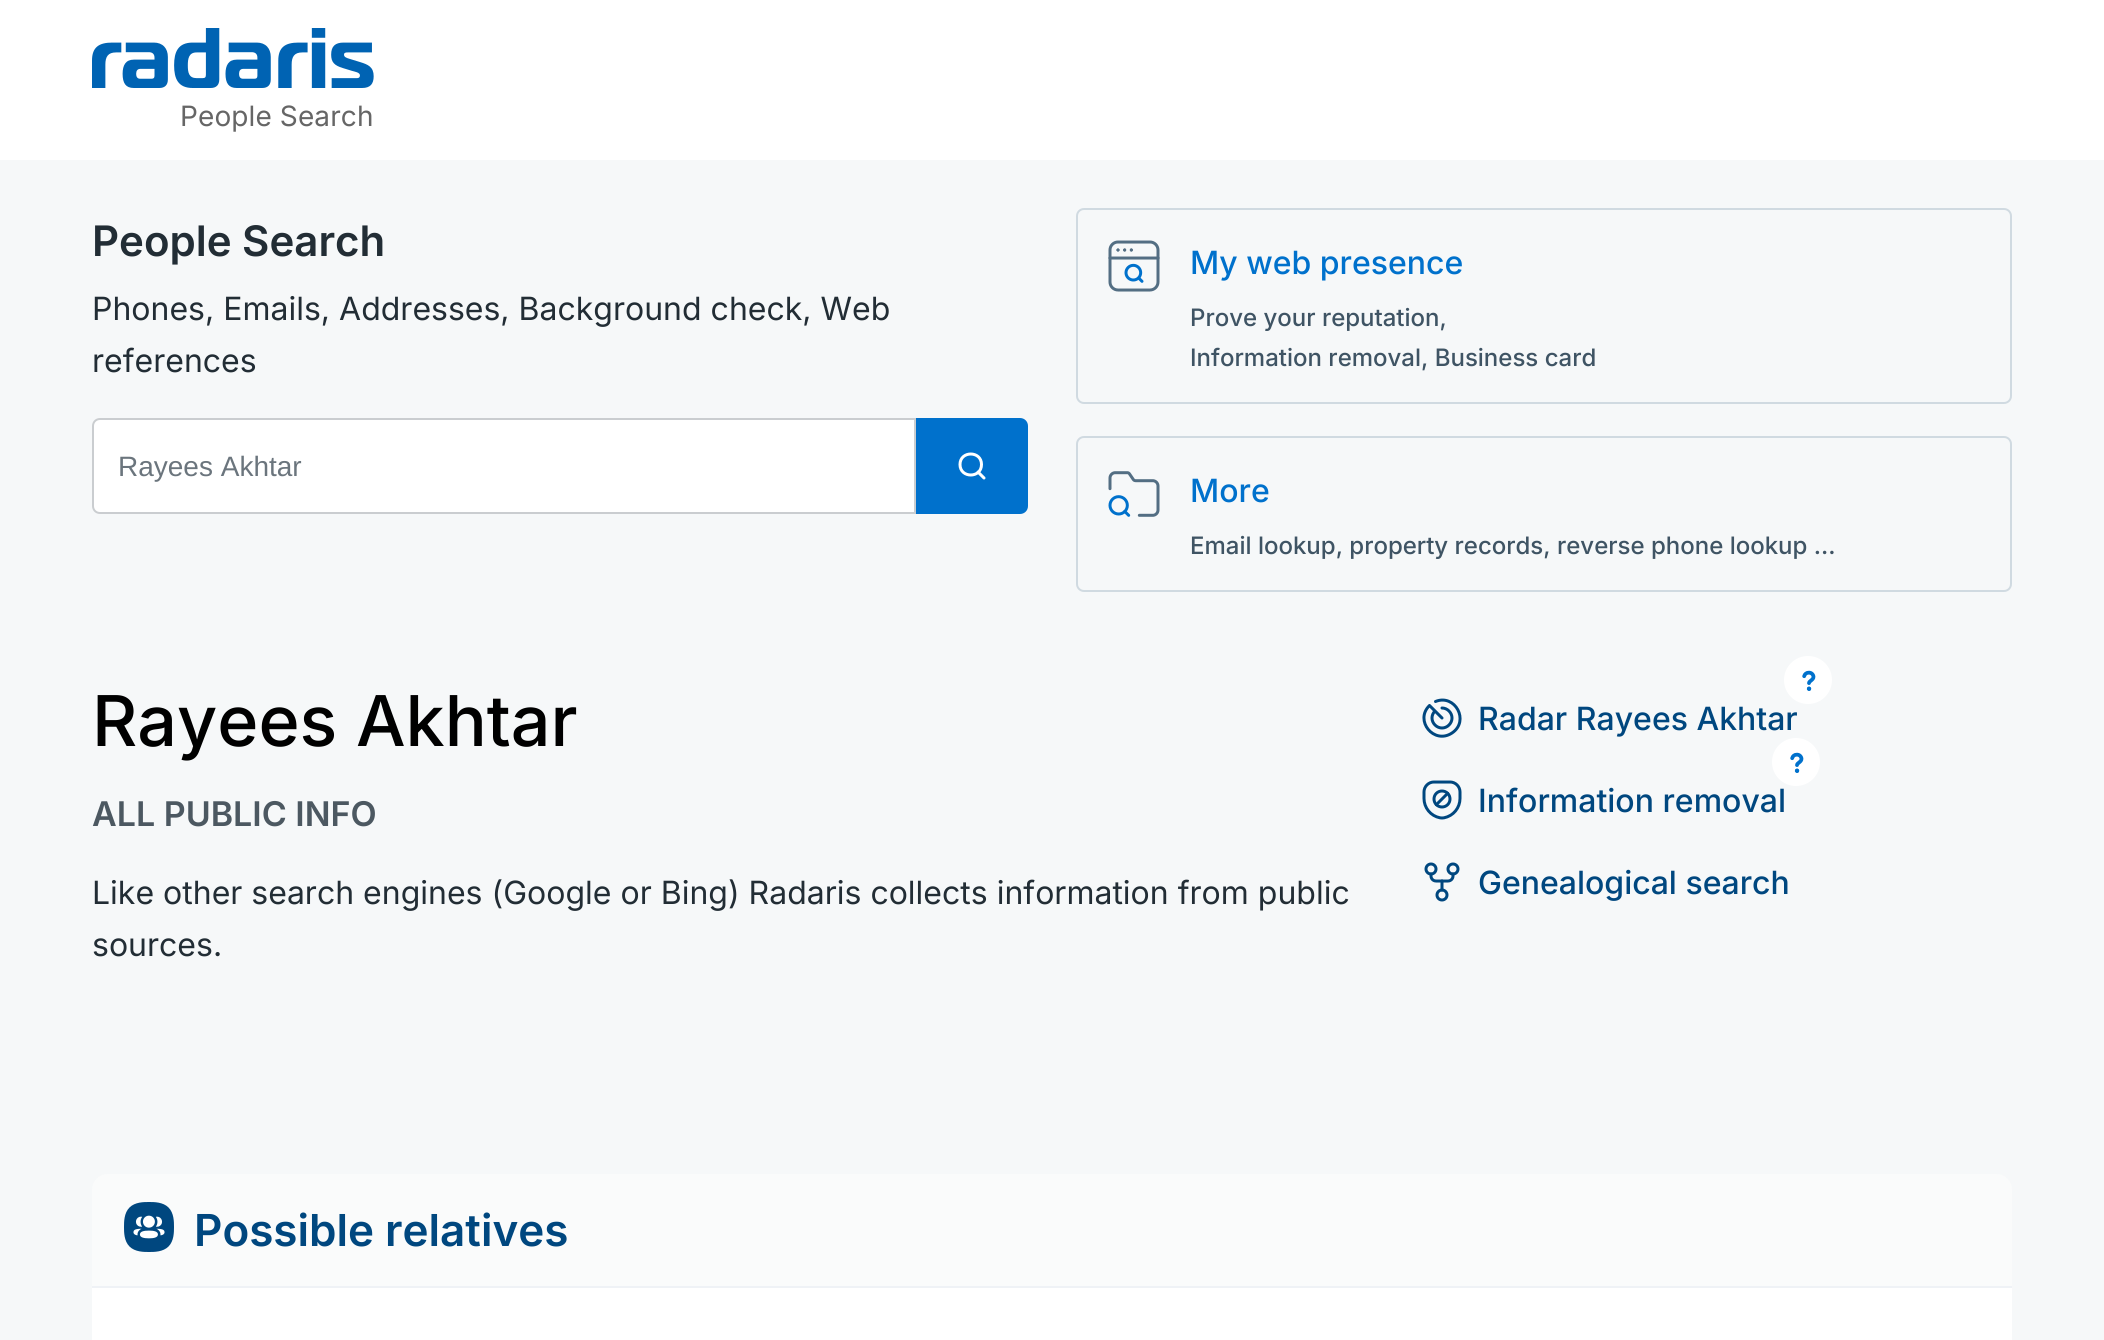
import math
import cairo


def write_spaced(ctx, x, y, s, letter, word):
	ctx.move_to(x, y)
	for ch in s:
		ctx.show_text(ch)
		ctx.rel_move_to(letter + word * (ch == ' '), 0)

def round_path(ctx, x, y, w, h, r):
	ctx.new_sub_path()
	for i, (u, v) in enumerate([(x + w - r, y + h - r), (x + r, y + h - r), (x + r, y + r), (x + w - r, y + r)]):
		ctx.arc(u, v, r, i * math.pi / 2, (i + 1) * math.pi / 2)
	ctx.close_path()

def paste(ctx, path, x, y, w, h):
	ctx.save()
	ctx.set_source_surface(cairo.ImageSurface.create_from_png(path), x, y)
	ctx.rectangle(x, y, w, h)
	ctx.fill()
	ctx.restore()

def draw(ctx):
	ctx.set_source_rgb(0.961, 0.969, 0.973)
	ctx.paint()
	ctx.set_source_rgb(1, 1, 1)
	ctx.rectangle(0, 0, 2104, 160)
	ctx.fill()
	paste(ctx, 'media/1.png', 92, 28, 282, 60)
	ctx.select_font_face('Inter')
	ctx.set_font_size(28)
	ctx.set_source_rgb(0.4, 0.4, 0.4)
	write_spaced(ctx, 180, 126, 'People Search', 0.1, 0)
	ctx.select_font_face('Inter SemiBold')
	ctx.set_font_size(42)
	ctx.set_source_rgb(0.133, 0.176, 0.208)
	ctx.move_to(92, 256)
	ctx.show_text('People Search')
	ctx.select_font_face('Inter')
	ctx.set_font_size(32)
	ctx.move_to(92, 320)
	ctx.show_text('Phones, Emails, Addresses, Background check, Web')
	ctx.move_to(92, 372)
	ctx.show_text('references')
	ctx.set_source_rgb(1, 1, 1)
	ctx.new_path()
	ctx.move_to(100, 419)
	ctx.line_to(915, 419)
	ctx.line_to(915, 513)
	ctx.line_to(100, 513)
	ctx.curve_to(96, 513, 93, 510, 93, 506)
	ctx.line_to(93, 426)
	ctx.curve_to(93, 422, 96, 419, 100, 419)
	ctx.close_path()
	ctx.fill_preserve()
	ctx.set_source_rgb(0.792, 0.804, 0.816)
	ctx.stroke()
	ctx.select_font_face('Liberation Sans')
	ctx.set_font_size(28)
	ctx.set_source_rgb(0.42, 0.459, 0.49)
	ctx.move_to(118, 476)
	ctx.show_text('Rayees Akhtar')
	ctx.set_source_rgb(0, 0.443, 0.8)
	ctx.new_path()
	ctx.move_to(916, 418)
	ctx.line_to(1020, 418)
	ctx.curve_to(1024.5, 418, 1028, 421.5, 1028, 426)
	ctx.line_to(1028, 506)
	ctx.curve_to(1028, 510.5, 1024.5, 514, 1020, 514)
	ctx.line_to(916, 514)
	ctx.close_path()
	ctx.fill()
	ctx.new_path()
	ctx.move_to(984, 478)
	ctx.line_to(978, 472)
	ctx.move_to(981.5, 464.5)
	ctx.curve_to(981.5, 478.5, 960, 478.5, 960, 464.5)
	ctx.curve_to(960, 450.5, 981.5, 450.5, 981.5, 464.5)
	ctx.close_path()
	ctx.set_source_rgb(1, 1, 1)
	ctx.set_line_width(3)
	ctx.set_line_cap(cairo.LINE_CAP_ROUND)
	ctx.set_line_join(cairo.LINE_JOIN_ROUND)
	ctx.stroke()
	paste(ctx, 'media/2.png', 1108, 240, 52, 52)
	round_path(ctx, 1077, 209, 934, 194, 7)
	ctx.set_source_rgb(0.816, 0.855, 0.882)
	ctx.set_line_width(2)
	ctx.set_line_cap(cairo.LINE_CAP_BUTT)
	ctx.set_line_join(cairo.LINE_JOIN_MITER)
	ctx.stroke()
	ctx.select_font_face('Inter Medium')
	ctx.set_font_size(32)
	ctx.set_source_rgb(0, 0.443, 0.8)
	ctx.move_to(1190, 274)
	ctx.show_text('My web presence')
	ctx.set_font_size(24)
	ctx.set_source_rgb(0.247, 0.329, 0.392)
	ctx.move_to(1190, 326)
	ctx.show_text('Prove your reputation,')
	ctx.move_to(1190, 366)
	ctx.show_text('Information removal, Business card')
	paste(ctx, 'media/3.png', 1108, 471, 52, 46)
	round_path(ctx, 1077, 437, 934, 154, 7)
	ctx.set_source_rgb(0.816, 0.855, 0.882)
	ctx.stroke()
	ctx.set_font_size(32)
	ctx.set_source_rgb(0, 0.443, 0.8)
	ctx.move_to(1190, 502)
	ctx.show_text('More')
	ctx.set_font_size(24)
	ctx.set_source_rgb(0.247, 0.329, 0.392)
	ctx.move_to(1190, 554)
	ctx.show_text('Email lookup, рroperty records, reverse phone lookup ...')
	ctx.set_font_size(70)
	ctx.set_source_rgb(0, 0, 0)
	ctx.move_to(92, 746)
	ctx.show_text('Rayees Akhtar')
	ctx.select_font_face('Inter SemiBold')
	ctx.set_font_size(34)
	ctx.set_source_rgb(0.298, 0.345, 0.38)
	ctx.move_to(92, 826)
	ctx.show_text('ALL PUBLIC INFO')
	ctx.select_font_face('Inter')
	ctx.set_font_size(32)
	ctx.set_source_rgb(0.133, 0.176, 0.208)
	ctx.move_to(92, 904)
	ctx.show_text('Like other search engines (Google or Bing) Radaris collects information from public')
	ctx.move_to(92, 956)
	ctx.show_text('sources.')
	ctx.set_source_rgb(1, 1, 1)
	ctx.new_path()
	ctx.arc(1808, 680, 24, 0, 2 * math.pi)
	ctx.fill()
	paste(ctx, 'media/4.png', 1802, 670, 14, 21)
	ctx.new_path()
	ctx.move_to(1435, 711)
	ctx.curve_to(1431, 715, 1431, 721, 1435, 725)
	ctx.curve_to(1439, 729, 1445, 729, 1449, 725)
	ctx.curve_to(1453, 721, 1453, 715, 1449, 711)
	ctx.curve_to(1447, 709, 1444.5, 708, 1442, 708)
	ctx.move_to(1429.5, 705.5)
	ctx.curve_to(1414, 720.5, 1434, 745, 1452, 733)
	ctx.curve_to(1470, 721, 1455, 693.5, 1435.5, 701.5)
	ctx.move_to(1429.5, 705.5)
	ctx.line_to(1442, 718)
	ctx.set_source_rgb(0, 0.278, 0.498)
	ctx.set_line_width(3)
	ctx.set_line_cap(cairo.LINE_CAP_ROUND)
	ctx.set_line_join(cairo.LINE_JOIN_ROUND)
	ctx.stroke()
	ctx.select_font_face('Inter Medium')
	ctx.move_to(1478, 730)
	ctx.show_text('Radar Rayees Akhtar')
	ctx.set_source_rgb(1, 1, 1)
	ctx.new_path()
	ctx.arc(1796, 762, 24, 0, 2 * math.pi)
	ctx.fill()
	paste(ctx, 'media/4.png', 1790, 752, 14, 21)
	paste(ctx, 'media/5.png', 1422, 780, 40, 40)
	ctx.set_source_rgb(0, 0.278, 0.498)
	ctx.move_to(1478, 812)
	ctx.show_text('Information removal')
	paste(ctx, 'media/6.png', 1424, 862, 36, 40)
	ctx.move_to(1478, 894)
	ctx.show_text('Genealogical search')
	ctx.set_source_rgb(0.98, 0.984, 0.984)
	ctx.new_path()
	ctx.move_to(108, 1174)
	ctx.line_to(1996, 1174)
	ctx.curve_to(2005, 1174, 2012, 1181, 2012, 1190)
	ctx.line_to(2012, 1288)
	ctx.line_to(92, 1288)
	ctx.line_to(92, 1190)
	ctx.curve_to(92, 1181, 99, 1174, 108, 1174)
	ctx.close_path()
	ctx.fill()
	paste(ctx, 'media/7.png', 124, 1202, 50, 50)
	ctx.set_source_rgb(0.937, 0.949, 0.961)
	ctx.rectangle(92, 1286, 1920, 2)
	ctx.fill()
	ctx.select_font_face('Inter SemiBold')
	ctx.set_font_size(44)
	ctx.set_source_rgb(0, 0.278, 0.498)
	ctx.move_to(194, 1246)
	ctx.show_text('Possible relatives')
	ctx.set_source_rgb(1, 1, 1)
	ctx.rectangle(92, 1288, 1920, 52)
	ctx.fill()


surface = cairo.ImageSurface(cairo.FORMAT_RGB24, 2104, 1340)
ctx = cairo.Context(surface)
options = cairo.FontOptions()
options.set_hint_metrics(cairo.HINT_METRICS_OFF)
options.set_hint_style(cairo.HINT_STYLE_NONE)
ctx.set_font_options(options)
ctx.set_miter_limit(4)
draw(ctx)
surface.write_to_png('image.png')
